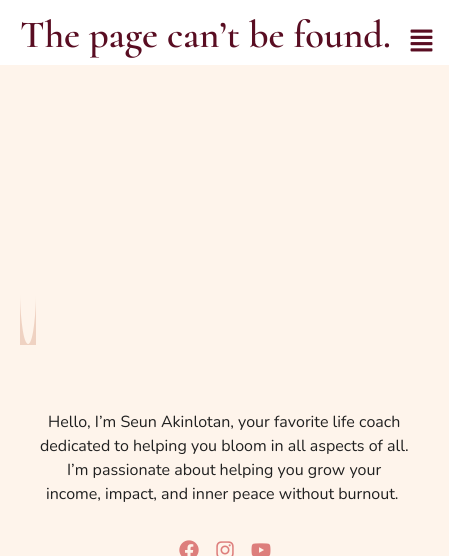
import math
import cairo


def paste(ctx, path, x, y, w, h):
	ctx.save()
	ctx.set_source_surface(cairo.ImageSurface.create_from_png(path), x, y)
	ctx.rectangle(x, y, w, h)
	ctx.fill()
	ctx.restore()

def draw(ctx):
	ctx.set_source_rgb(1, 1, 1)
	ctx.paint()
	ctx.select_font_face('Cormorant SemiBold')
	ctx.set_font_size(38.5)
	ctx.set_source_rgb(0.349, 0.051, 0.133)
	ctx.move_to(20, 47)
	ctx.show_text('The page can’t be found.')
	paste(ctx, 'media/1.png', 410, 29, 23, 23)
	ctx.set_source_rgb(0.996, 0.957, 0.918)
	ctx.rectangle(0, 65, 449, 491)
	ctx.fill()
	ctx.set_source_rgb(0.937, 0.824, 0.761)
	ctx.new_path()
	ctx.move_to(28, 344)
	ctx.curve_to(22, 343, 20, 305, 20, 295)
	ctx.line_to(20, 345)
	ctx.line_to(36, 345)
	ctx.line_to(36, 296)
	ctx.curve_to(36, 305, 34, 344, 28, 344)
	ctx.close_path()
	ctx.fill()
	ctx.select_font_face('Nunito')
	ctx.set_font_size(16)
	ctx.set_source_rgb(0.125, 0.125, 0.125)
	for x, y, s in [
		(48, 427, 'Hello, I’m Seun Akinlotan, your favorite life coach'),
		(40, 451, 'dedicated to helping you bloom in all aspects of all.'),
		(67, 475, 'I’m passionate about helping you grow your'),
		(46, 499, 'income, impact, and inner peace without burnout.'),
	]:
		ctx.move_to(x, y)
		ctx.show_text(s)
	paste(ctx, 'media/2.png', 179, 540, 20, 16)
	paste(ctx, 'media/3.png', 216, 541, 18, 15)
	paste(ctx, 'media/4.png', 251, 543, 20, 13)


surface = cairo.ImageSurface(cairo.FORMAT_RGB24, 449, 556)
ctx = cairo.Context(surface)
options = cairo.FontOptions()
options.set_hint_metrics(cairo.HINT_METRICS_OFF)
options.set_hint_style(cairo.HINT_STYLE_NONE)
ctx.set_font_options(options)
ctx.set_miter_limit(4)
draw(ctx)
surface.write_to_png('image.png')
